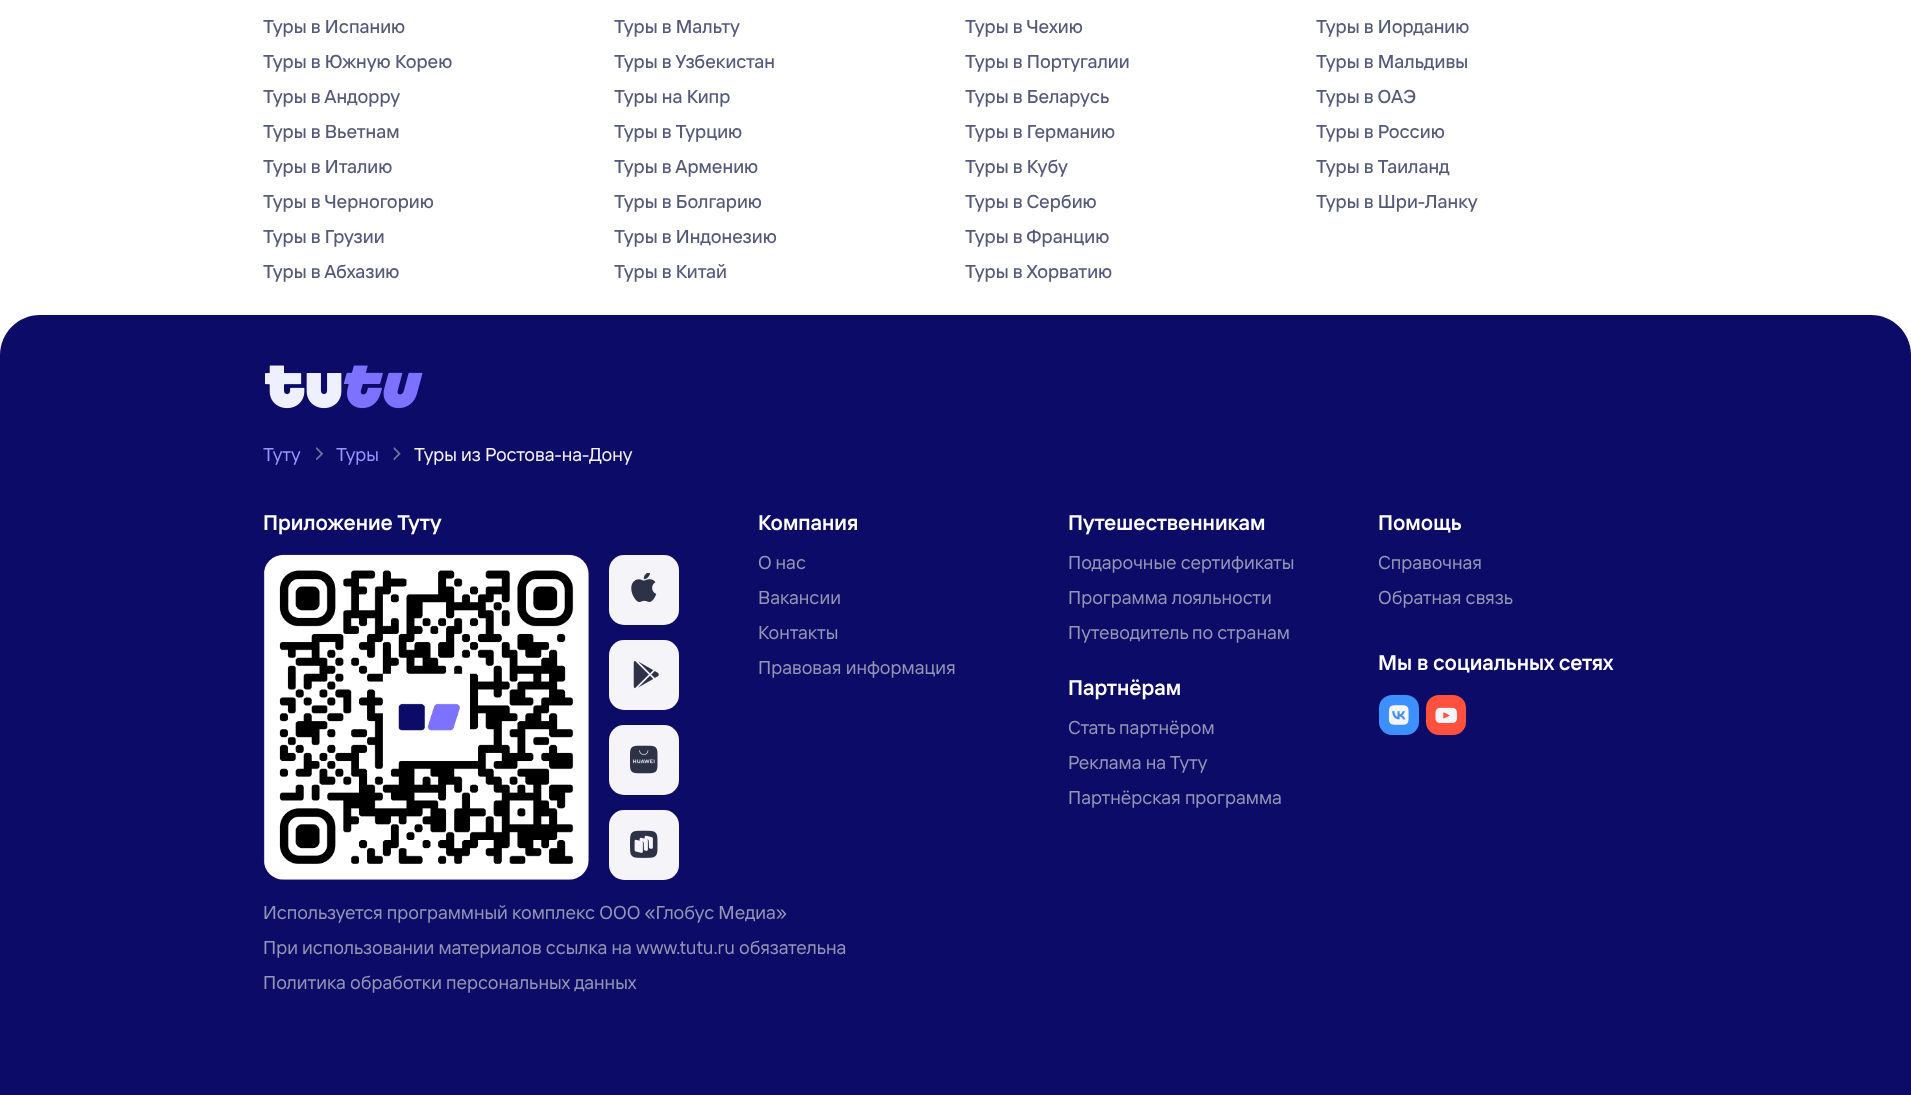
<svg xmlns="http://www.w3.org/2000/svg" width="1911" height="1095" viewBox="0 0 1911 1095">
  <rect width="100%" height="100%" fill="#fff"/>
  <path d="M40 315H1871C1893 315 1911 333 1911 355V1095H0V355C0 333 18 315 40 315Z" fill="#0d0b68"/>
  <image x="264" y="365" width="159" height="44" href="img/1.png"/>
  <image x="316" y="447" width="8" height="14" href="img/2.png"/>
  <image x="393" y="447" width="8" height="14" href="img/3.png"/>
  <image x="263" y="554" width="326" height="326" href="img/4.png"/>
  <rect x="609" y="555" width="70" height="70" rx="15" fill="#f5f5f9"/>
  <image x="631" y="573" width="26" height="29" href="img/5.png"/>
  <rect x="609" y="640" width="70" height="70" rx="15" fill="#f5f5f9"/>
  <image x="633" y="660" width="26" height="29" href="img/6.png"/>
  <rect x="609" y="725" width="70" height="70" rx="15" fill="#f5f5f9"/>
  <image x="630" y="745" width="28" height="29" href="img/7.png"/>
  <rect x="609" y="810" width="70" height="70" rx="15" fill="#f5f5f9"/>
  <image x="630" y="830" width="28" height="28" href="img/8.png"/>
  <rect x="1379" y="695" width="40" height="40" rx="13" fill="#3d91ff"/>
  <image x="1388" y="705" width="21" height="20" href="img/9.png"/>
  <rect x="1426" y="695" width="40" height="40" rx="13" fill="#ff513d"/>
  <image x="1435" y="707" width="22" height="16" href="img/10.png"/>
  <g font-family="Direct" font-size="18.75" font-weight="500" fill="#555a7a">
    <text x="263" y="33">Туры в Испанию</text>
    <text x="614" y="33">Туры в Мальту</text>
    <text x="965" y="33">Туры в Чехию</text>
    <text x="1316" y="33">Туры в Иорданию</text>
    <text x="263" y="68">Туры в Южную Корею</text>
    <text x="614" y="68">Туры в Узбекистан</text>
    <text x="965" y="68">Туры в Португалии</text>
    <text x="1316" y="68">Туры в Мальдивы</text>
    <text x="263" y="103">Туры в Андорру</text>
    <text x="614" y="103">Туры на Кипр</text>
    <text x="965" y="103">Туры в Беларусь</text>
    <text x="1316" y="103">Туры в ОАЭ</text>
    <text x="263" y="138">Туры в Вьетнам</text>
    <text x="614" y="138">Туры в Турцию</text>
    <text x="965" y="138">Туры в Германию</text>
    <text x="1316" y="138">Туры в Россию</text>
    <text x="263" y="173">Туры в Италию</text>
    <text x="614" y="173">Туры в Армению</text>
    <text x="965" y="173">Туры в Кубу</text>
    <text x="1316" y="173">Туры в Таиланд</text>
    <text x="263" y="208">Туры в Черногорию</text>
    <text x="614" y="208">Туры в Болгарию</text>
    <text x="965" y="208">Туры в Сербию</text>
    <text x="1316" y="208">Туры в Шри-Ланку</text>
    <text x="263" y="243">Туры в Грузии</text>
    <text x="614" y="243">Туры в Индонезию</text>
    <text x="965" y="243">Туры в Францию</text>
    <text x="263" y="278">Туры в Абхазию</text>
    <text x="614" y="278">Туры в Китай</text>
    <text x="965" y="278">Туры в Хорватию</text>
  </g>
  <g font-family="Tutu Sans" font-size="18.75" fill="#9996ff">
    <text x="263" y="461">Туту</text>
    <text x="336" y="461">Туры</text>
  </g>
  <text x="414" y="461" font-family="Tutu Sans" font-size="18.75" fill="#f5f5f9">Туры из Ростова-на-Дону</text>
  <g font-family="Tutu Sans" font-size="21.25" font-weight="600" fill="#fff">
    <text x="263" y="530">Приложение Туту</text>
    <text x="758" y="530">Компания</text>
  </g>
  <g font-family="Tutu Sans" font-size="18.75" fill="#9496b4">
    <text x="758" y="569">О нас</text>
    <text x="758" y="604">Вакансии</text>
    <text x="758" y="639">Контакты</text>
    <text x="758" y="674">Правовая информация</text>
  </g>
  <text x="1068" y="530" font-family="Tutu Sans" font-size="21.25" font-weight="600" fill="#fff">Путешественникам</text>
  <g font-family="Tutu Sans" font-size="18.75" fill="#9496b4">
    <text x="1068" y="569">Подарочные сертификаты</text>
    <text x="1068" y="604">Программа лояльности</text>
    <text x="1068" y="639">Путеводитель по странам</text>
  </g>
  <text x="1068" y="695" font-family="Tutu Sans" font-size="21.25" font-weight="600" fill="#fff">Партнёрам</text>
  <g font-family="Tutu Sans" font-size="18.75" fill="#9496b4">
    <text x="1068" y="734">Стать партнёром</text>
    <text x="1068" y="769">Реклама на Туту</text>
    <text x="1068" y="804">Партнёрская программа</text>
  </g>
  <text x="1378" y="530" font-family="Tutu Sans" font-size="21.25" font-weight="600" fill="#fff">Помощь</text>
  <g font-family="Tutu Sans" font-size="18.75" fill="#9496b4">
    <text x="1378" y="569">Справочная</text>
    <text x="1378" y="604">Обратная связь</text>
  </g>
  <text x="1378" y="670" font-family="Tutu Sans" font-size="21.25" font-weight="600" fill="#fff">Мы в социальных сетях</text>
  <g font-family="Tutu Sans" font-size="18.75" fill="#9496b4">
    <text x="263" y="919">Используется программный комплекс ООО «Глобус Медиа»</text>
    <text x="263" y="954">При использовании материалов ссылка на www.tutu.ru обязательна</text>
    <text x="263" y="989">Политика обработки персональных данных</text>
  </g>
</svg>
